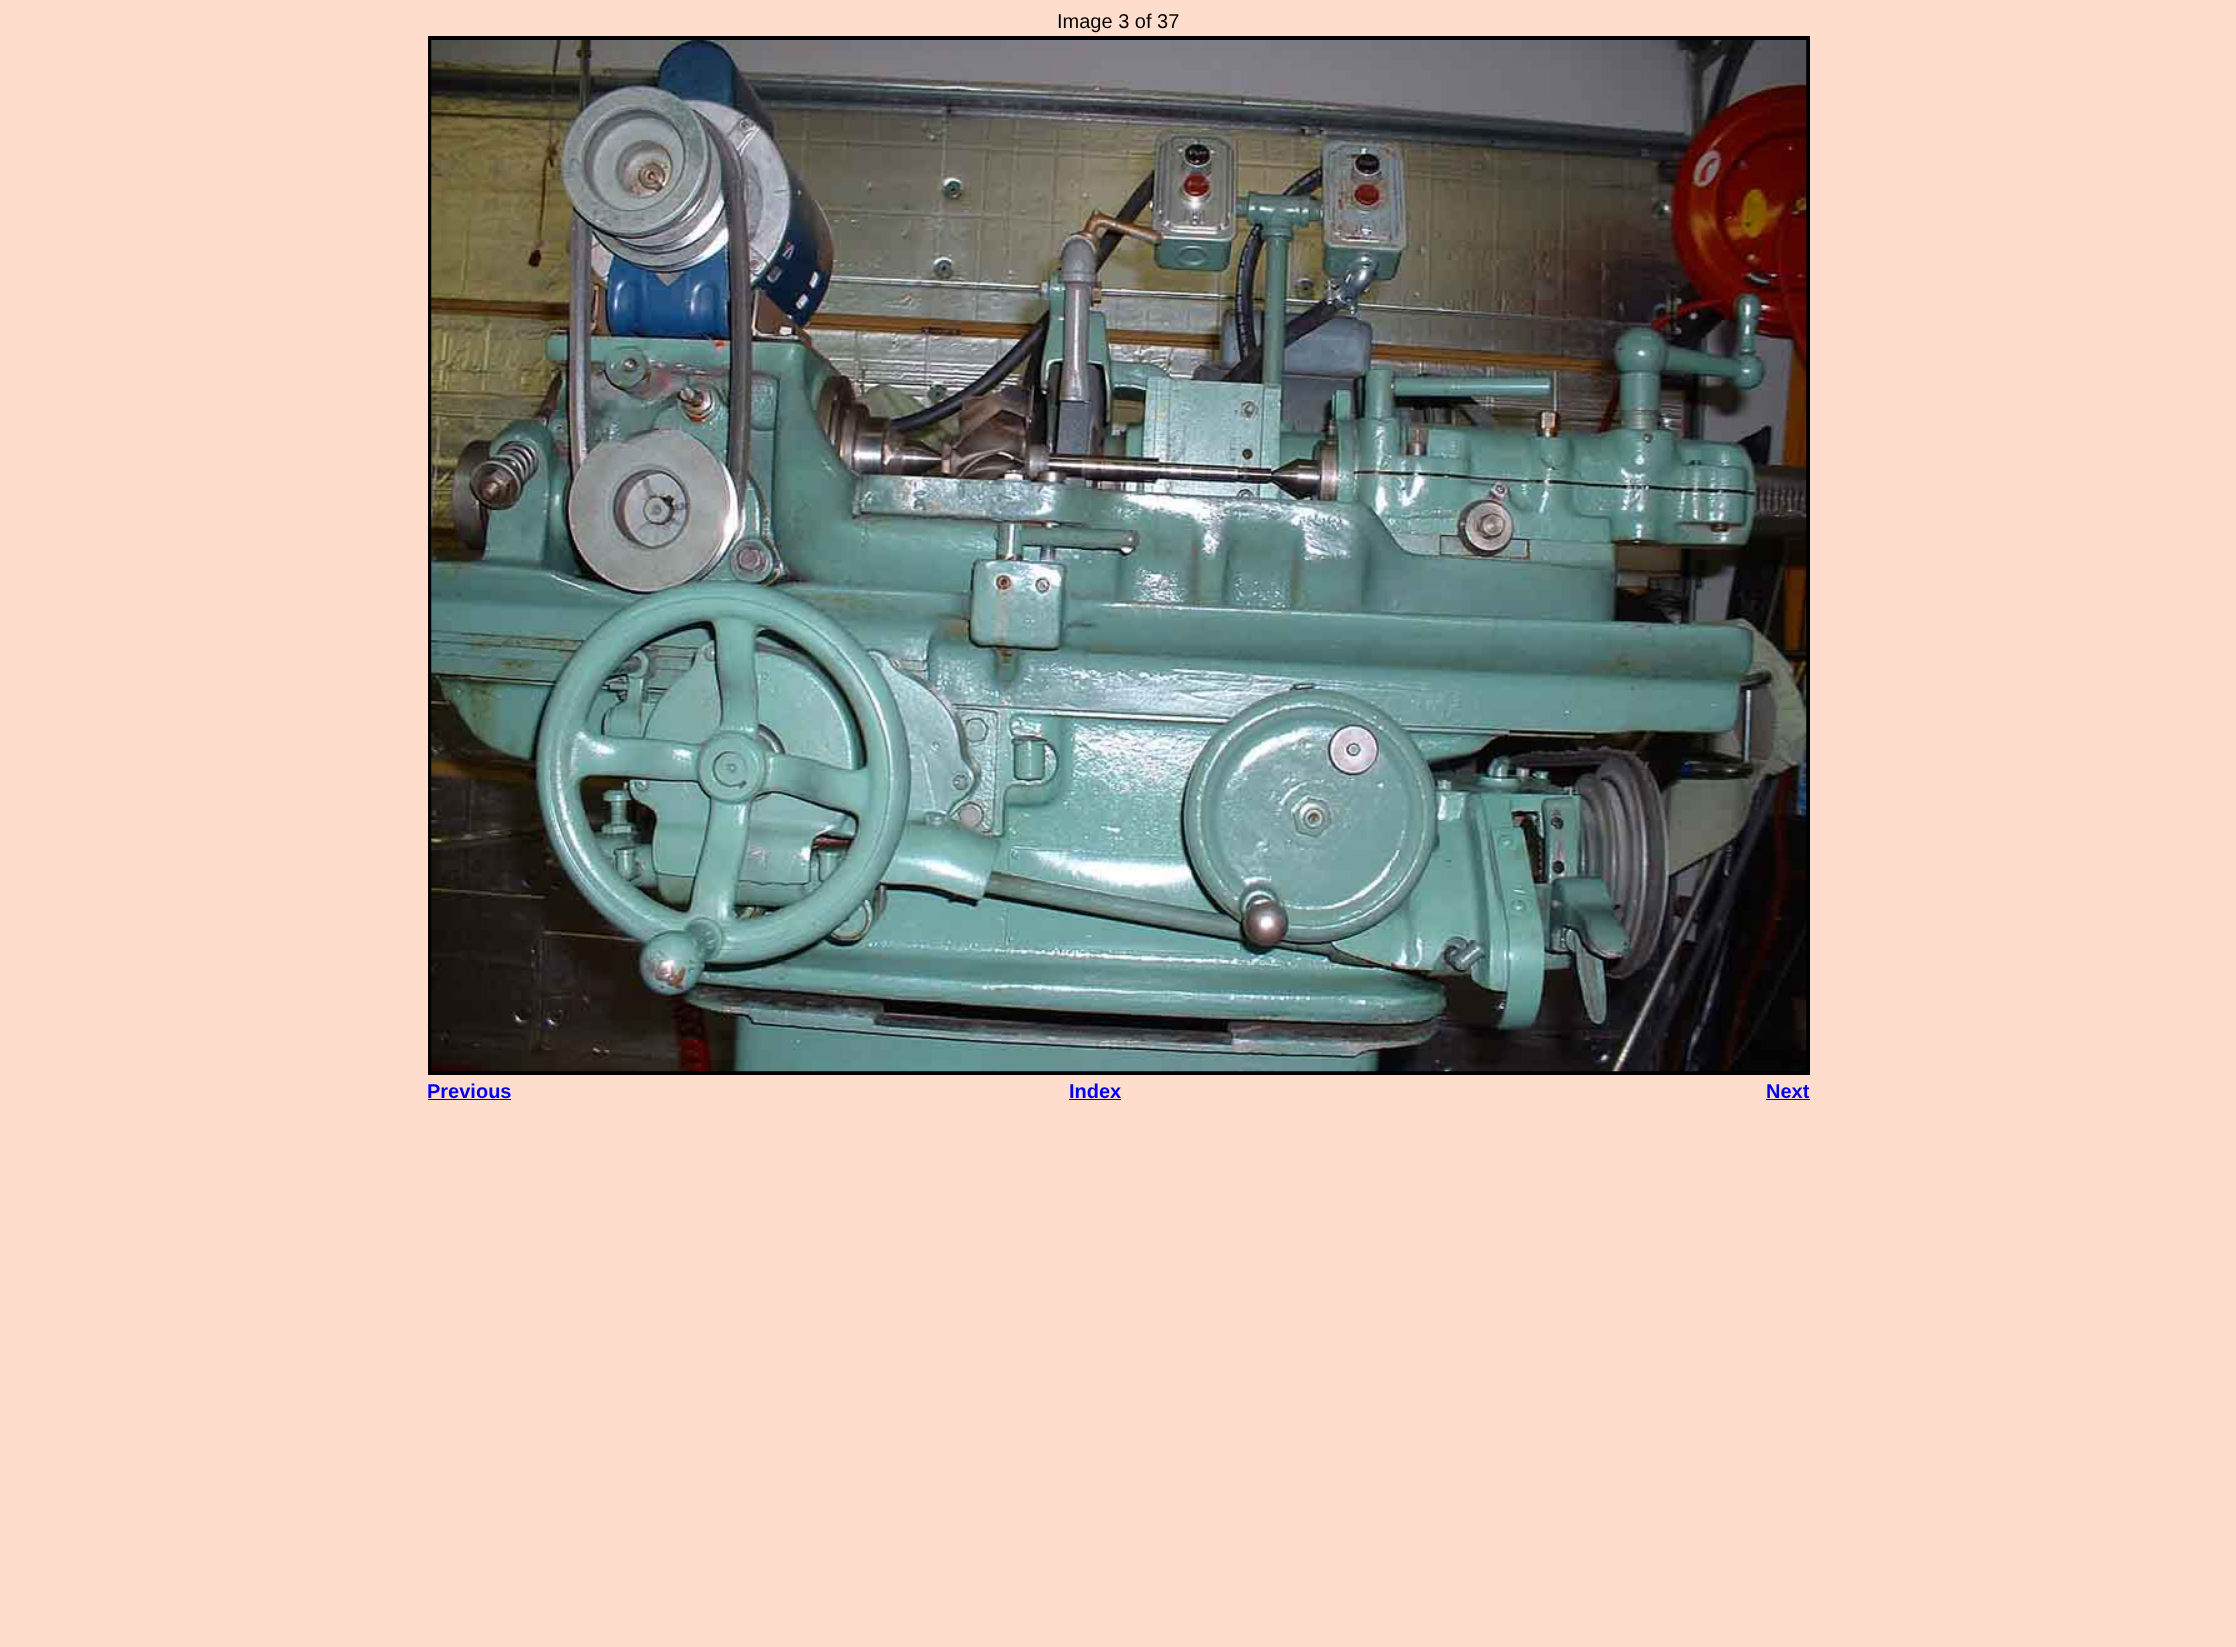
<svg xmlns="http://www.w3.org/2000/svg" width="2236" height="1647" viewBox="0 0 2236 1647">
  <rect width="100%" height="100%" fill="#fdc"/>
  <path d="M430 38h1378v1035H430z" fill="none" stroke="#000" stroke-width="4"/>
  <image x="431" y="40" width="1376" height="1032" href="img/1.png"/>
  <path d="M428 1099h83v1H428z" fill="#00e"/>
  <path d="M1069 1099h52v1H1069z" fill="#00e"/>
  <path d="M1766 1099h44v1H1766z" fill="#00e"/>
  <text x="1057" y="28" font-family="Liberation Sans" font-size="20" fill="#000">Image 3 of 37</text>
  <g font-family="Liberation Sans" font-size="20" font-weight="bold" fill="#00e">
    <text x="427" y="1098">Previous</text>
    <text x="1069" y="1098">Index</text>
    <text x="1766" y="1098">Next</text>
  </g>
</svg>
